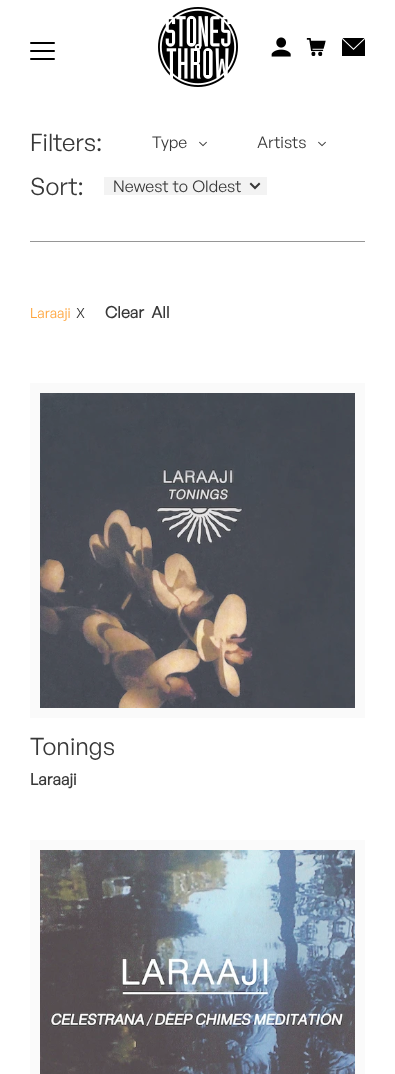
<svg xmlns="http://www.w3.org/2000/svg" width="395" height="1074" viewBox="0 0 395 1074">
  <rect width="100%" height="100%" fill="#fff"/>
  <rect x="30" y="42" width="25" height="2" rx="1" fill="#000"/>
  <rect x="30" y="50" width="25" height="2" rx="1" fill="#000"/>
  <rect x="30" y="58" width="25" height="2" rx="1" fill="#000"/>
  <image x="158" y="7" width="80" height="80" href="img/1.png"/>
  <image x="271" y="37" width="20" height="20" href="img/2.png"/>
  <image x="306" y="38" width="20" height="18" href="img/3.png"/>
  <path d="M342 39V56H365V39L353.5 50ZM364.5 38H342.5L353.5 48.5Z" fill="#000" fill-rule="evenodd"/>
  <path d="M30 241h335v1H30z" fill="#969696"/>
  <image x="199" y="141" width="8" height="6" href="img/4.png"/>
  <image x="318" y="141" width="8" height="6" href="img/4.png"/>
  <path d="M104 177h163v18H104z" fill="#f3f3f3"/>
  <path d="M259 184L255 188L251 184" fill="none" stroke="#383838" stroke-width="2" stroke-linecap="square"/>
  <path d="M30 383h335v335H30z" fill="#fafafa"/>
  <image x="40" y="393" width="315" height="315" href="img/5.png"/>
  <path d="M30 840h335v234H30z" fill="#fafafa"/>
  <image x="40" y="850" width="315" height="224" href="img/6.png"/>
  <text x="30" y="151" font-family="General Sans" font-size="24" fill="#383838">Filters:</text>
  <g font-family="General Sans" font-size="16" fill="#383838">
    <text x="152" y="148">Type</text>
    <text x="257" y="148">Artists</text>
  </g>
  <text x="30" y="195" font-family="General Sans" font-size="24" fill="#383838">Sort:</text>
  <text x="113" y="192" word-spacing="1" font-family="General Sans" font-size="16" fill="#383838">Newest to Oldest</text>
  <text x="30" y="318" font-family="General Sans" font-size="14" fill="#ffa338">Laraaji</text>
  <text x="76" y="318" font-family="General Sans" font-size="14" fill="#383838">X</text>
  <text x="105" y="318" word-spacing="4" font-family="General Sans" font-size="16" font-weight="bold" fill="#383838">Clear All</text>
  <text x="30" y="755" font-family="General Sans" font-size="24" fill="#383838">Tonings</text>
  <text x="30" y="785" font-family="General Sans" font-size="16" font-weight="bold" fill="#383838">Laraaji</text>
</svg>
